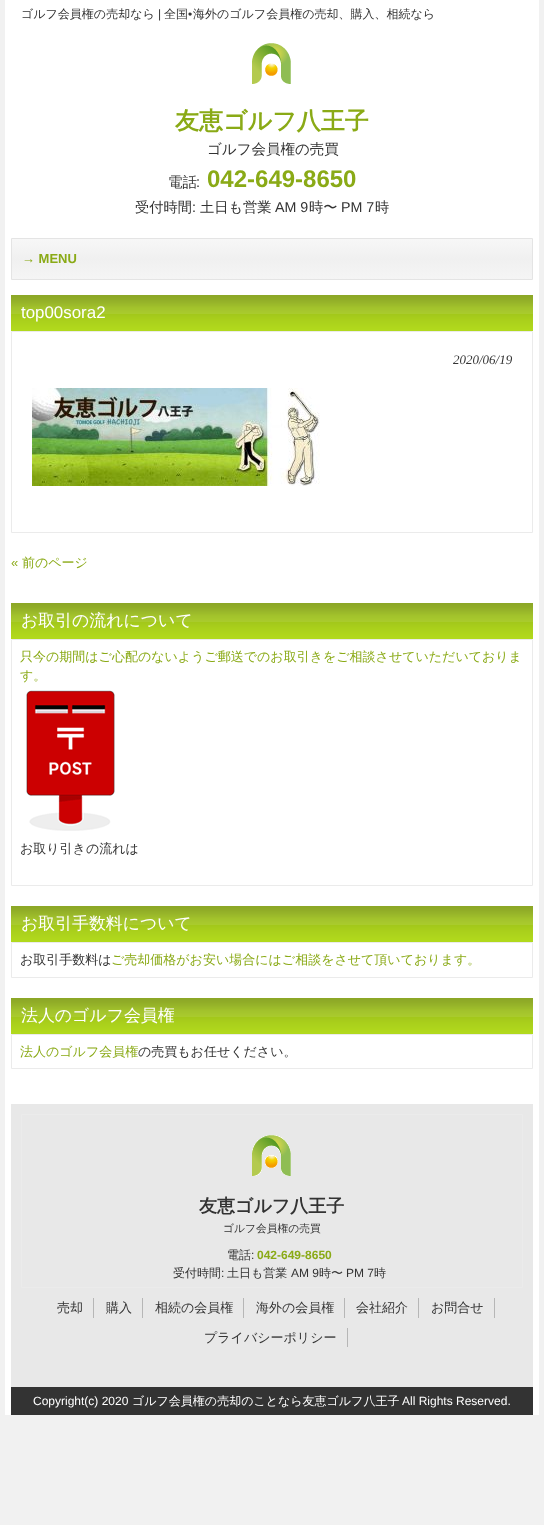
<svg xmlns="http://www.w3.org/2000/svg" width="544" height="1525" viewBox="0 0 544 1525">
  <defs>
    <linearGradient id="g1" gradientUnits="userSpaceOnUse" x1="272" y1="239" x2="272" y2="279"><stop offset="0" stop-color="#f7f7f7"/><stop offset="0.5" stop-color="#f0f0f0"/><stop offset="1" stop-color="#f5f5f5"/></linearGradient>
  </defs>
  <rect width="100%" height="100%" fill="#f1f1f1"/>
  <path d="M5 0h534v1415H5z" fill="#fff"/>
  <image x="252" y="43" width="39" height="41" href="img/1.png"/>
  <path d="M12 239h520v40H12z" fill="url(#g1)"/>
  <path d="M11.5 238.5h521v41H11.5z" fill="none" stroke="#e4e4e4"/>
  <image x="11" y="295" width="522" height="36" href="img/2.png"/>
  <path d="M11.5 331.5h521v201H11.5z" fill="none" stroke="#ebebeb"/>
  <image x="32" y="388" width="288" height="98" href="img/3.png"/>
  <image x="11" y="603" width="522" height="36" href="img/2.png"/>
  <path d="M11.5 639.5h521v246H11.5z" fill="none" stroke="#ebebeb"/>
  <image x="26" y="690" width="89" height="141" href="img/4.png"/>
  <image x="11" y="906" width="522" height="36" href="img/2.png"/>
  <path d="M11.5 942.5h521v35H11.5z" fill="none" stroke="#ebebeb"/>
  <image x="11" y="998" width="522" height="36" href="img/2.png"/>
  <path d="M11.5 1034.5h521v34H11.5z" fill="none" stroke="#ebebeb"/>
  <path d="M11 1104h522v283H11z" fill="#e8e8e8"/>
  <path d="M21.5 1114.5h501v173H21.5z" fill="none" stroke="#ebebeb"/>
  <image x="252" y="1135" width="39" height="41" href="img/5.png"/>
  <path d="M93 1298h1v20H93z" fill="#b6b6b6"/>
  <path d="M142 1298h1v20H142z" fill="#b6b6b6"/>
  <path d="M243 1298h1v20H243z" fill="#b6b6b6"/>
  <path d="M344 1298h1v20H344z" fill="#b6b6b6"/>
  <path d="M418 1298h1v20H418z" fill="#b6b6b6"/>
  <path d="M494 1298h1v20H494z" fill="#b6b6b6"/>
  <path d="M347 1328h1v19H347z" fill="#b6b6b6"/>
  <path d="M11 1387h522v28H11z" fill="#333"/>
  <text x="21" y="18" font-family="WenQuanYi Zen Hei" font-size="12" font-weight="500" fill="#333">ゴルフ会員権の売却なら</text>
  <text x="158" y="18" font-family="Liberation Sans" font-size="12" fill="#333">|</text>
  <text x="164" y="18" font-family="WenQuanYi Zen Hei" font-size="12" font-weight="500" fill="#333">全国</text>
  <text x="188" y="18" font-family="Liberation Sans" font-size="12" fill="#333">•</text>
  <text x="193" y="18" font-family="WenQuanYi Zen Hei" font-size="12" font-weight="500" fill="#333">海外のゴルフ会員権の売却、購入、相続なら</text>
  <text x="175" y="129" font-family="WenQuanYi Zen Hei" font-size="24" font-weight="bold" fill="#8aaa16">友恵ゴルフ八王子</text>
  <g font-family="WenQuanYi Zen Hei" font-size="14.5" font-weight="500" fill="#333">
    <text x="207" y="154">ゴルフ会員権の売買</text>
    <text x="168" y="187">電話</text>
  </g>
  <text x="196" y="187" font-family="Liberation Sans" font-size="14.5" fill="#333">:</text>
  <text x="207" y="187" font-family="Liberation Sans" font-size="24" font-weight="bold" fill="#8aaa16">042-649-8650</text>
  <text x="135" y="212" font-family="WenQuanYi Zen Hei" font-size="14.25" font-weight="500" fill="#333">受付時間</text>
  <text x="192" y="212" font-family="Liberation Sans" font-size="14.25" fill="#333">:</text>
  <text x="200" y="212" font-family="WenQuanYi Zen Hei" font-size="14.25" font-weight="500" fill="#333">土日も営業</text>
  <text x="275" y="212" font-family="Liberation Sans" font-size="14.25" fill="#333">AM 9</text>
  <text x="309" y="212" font-family="WenQuanYi Zen Hei" font-size="14.25" font-weight="500" fill="#333">時〜</text>
  <text x="341" y="212" font-family="Liberation Sans" font-size="14.25" fill="#333">PM 7</text>
  <text x="375" y="212" font-family="WenQuanYi Zen Hei" font-size="14.25" font-weight="500" fill="#333">時</text>
  <text x="22" y="263" font-family="Liberation Sans" font-size="13" font-weight="bold" fill="#8aaa16">→ MENU</text>
  <text x="21" y="318" font-family="Liberation Sans" font-size="16.9" fill="#fff">top00sora2</text>
  <text x="453" y="364" font-family="Liberation Serif" font-size="13" font-style="italic" fill="#333">2020/06/19</text>
  <text x="11" y="567" font-family="Liberation Sans" font-size="13" fill="#8aaa16">«</text>
  <text x="22" y="567" font-family="WenQuanYi Zen Hei" font-size="13" font-weight="500" fill="#8aaa16">前のページ</text>
  <text x="21" y="626" font-family="WenQuanYi Zen Hei" font-size="16.9" font-weight="500" fill="#fff">お取引の流れについて</text>
  <g font-family="WenQuanYi Zen Hei" font-size="13" font-weight="500" fill="#8aaa16">
    <text x="20" y="661">只今の期間はご心配のないようご郵送でのお取引きをご相談させていただいておりま</text>
    <text x="20" y="680">す。</text>
  </g>
  <text x="20" y="853" font-family="WenQuanYi Zen Hei" font-size="13" font-weight="500" fill="#333">お取り引きの流れは</text>
  <text x="21" y="929" font-family="WenQuanYi Zen Hei" font-size="16.9" font-weight="500" fill="#fff">お取引手数料について</text>
  <text x="20" y="964" font-family="WenQuanYi Zen Hei" font-size="13" font-weight="500" fill="#333">お取引手数料は</text>
  <text x="111" y="964" font-family="WenQuanYi Zen Hei" font-size="13" font-weight="500" fill="#8aaa16">ご売却価格がお安い場合にはご相談をさせて頂いております。</text>
  <text x="21" y="1021" font-family="WenQuanYi Zen Hei" font-size="16.9" font-weight="500" fill="#fff">法人のゴルフ会員権</text>
  <text x="20" y="1056" font-family="WenQuanYi Zen Hei" font-size="13" font-weight="500" fill="#8aaa16">法人のゴルフ会員権</text>
  <text x="138" y="1056" font-family="WenQuanYi Zen Hei" font-size="13" font-weight="500" fill="#333">の売買もお任せください。</text>
  <text x="199" y="1212" font-family="WenQuanYi Zen Hei" font-size="18" font-weight="bold" fill="#333">友恵ゴルフ八王子</text>
  <text x="223" y="1232" font-family="WenQuanYi Zen Hei" font-size="10.75" font-weight="500" fill="#333">ゴルフ会員権の売買</text>
  <text x="227" y="1259" font-family="WenQuanYi Zen Hei" font-size="12" font-weight="500" fill="#333">電話</text>
  <text x="251" y="1259" font-family="Liberation Sans" font-size="12" fill="#333">:</text>
  <text x="257" y="1259" font-family="Liberation Sans" font-size="12" font-weight="bold" fill="#8aaa16">042-649-8650</text>
  <text x="173" y="1277" font-family="WenQuanYi Zen Hei" font-size="12" font-weight="500" fill="#333">受付時間</text>
  <text x="221" y="1277" font-family="Liberation Sans" font-size="12" fill="#333">:</text>
  <text x="227" y="1277" font-family="WenQuanYi Zen Hei" font-size="12" font-weight="500" fill="#333">土日も営業</text>
  <text x="291" y="1277" font-family="Liberation Sans" font-size="12" fill="#333">AM 9</text>
  <text x="319" y="1277" font-family="WenQuanYi Zen Hei" font-size="12" font-weight="500" fill="#333">時〜</text>
  <text x="346" y="1277" font-family="Liberation Sans" font-size="12" fill="#333">PM 7</text>
  <text x="374" y="1277" font-family="WenQuanYi Zen Hei" font-size="12" font-weight="500" fill="#333">時</text>
  <g font-family="WenQuanYi Zen Hei" font-size="13" font-weight="500" fill="#333">
    <text x="57" y="1312">売却</text>
    <text x="106" y="1312">購入</text>
    <text x="155" y="1312">相続の会員権</text>
    <text x="256" y="1312">海外の会員権</text>
    <text x="356" y="1312">会社紹介</text>
    <text x="431" y="1312">お問合せ</text>
    <text x="204" y="1342">プライバシーポリシー</text>
  </g>
  <text x="33" y="1405" font-family="Liberation Sans" font-size="12" fill="#fff">Copyright(c) 2020</text>
  <text x="132" y="1405" font-family="WenQuanYi Zen Hei" font-size="12" font-weight="500" fill="#fff">ゴルフ会員権の売却のことなら友恵ゴルフ八王子</text>
  <text x="402" y="1405" font-family="Liberation Sans" font-size="12" fill="#fff">All Rights Reserved.</text>
</svg>
